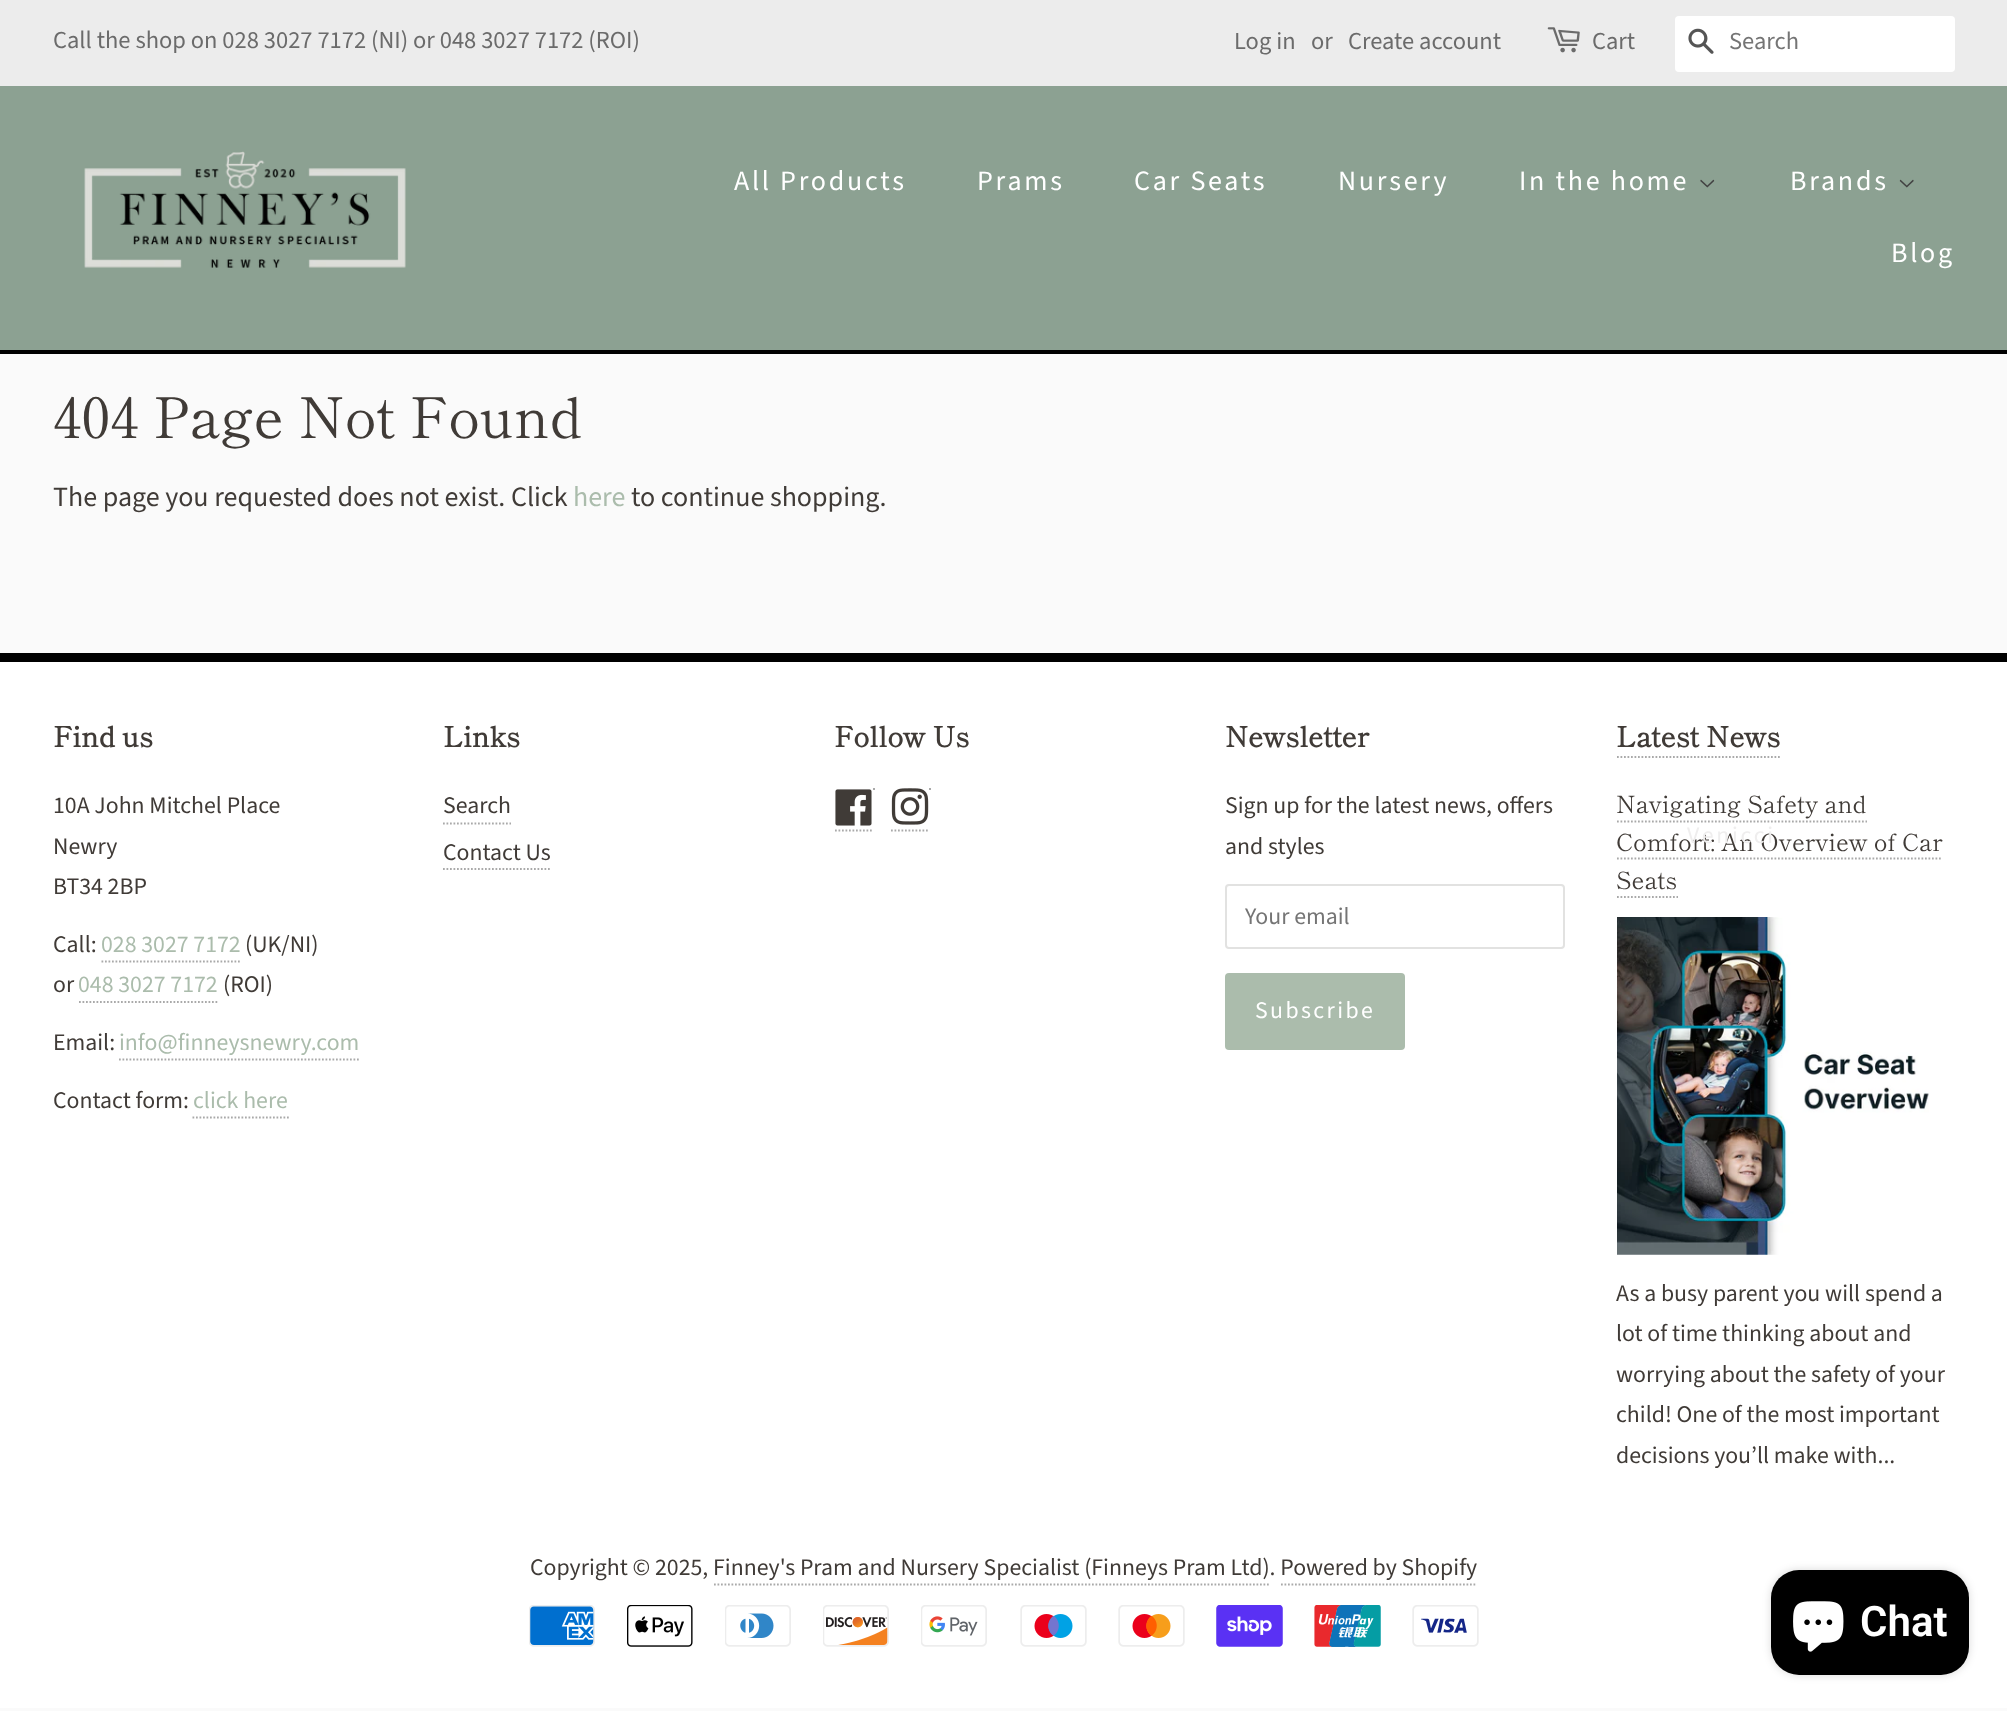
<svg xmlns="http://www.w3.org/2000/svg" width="2007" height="1711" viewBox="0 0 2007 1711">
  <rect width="100%" height="100%" fill="#fafafa"/>
  <path d="M0 350h2007v4H0z" fill="#000"/>
  <path d="M0 0h2007v86H0z" fill="#ececec"/>
  <image x="1547" y="27" width="33" height="26" href="img/1.png"/>
  <rect x="1675" y="16" width="280" height="56" rx="4" fill="#fff"/>
  <image x="1688" y="28" width="26" height="26" href="img/2.png"/>
  <path d="M0 86h2007v264H0z" fill="#8ca192"/>
  <image x="84" y="151" width="322" height="117" href="img/3.png"/>
  <image x="1700" y="179" width="15" height="9" href="img/4.png"/>
  <image x="1899" y="179" width="15" height="9" href="img/5.png"/>
  <path d="M0 662h2007v1046H0z" fill="#fff"/>
  <path d="M0 653h2007v9H0z" fill="#000"/>
  <path d="M101.5 961.5H240" fill="none" stroke="#a9a9a9" stroke-width="1.8" stroke-dasharray="1.75 1.75"/>
  <path d="M79 1002H219" fill="none" stroke="#a9a9a9" stroke-width="1.8" stroke-dasharray="1.75 1.75"/>
  <path d="M119 1059.5H359" fill="none" stroke="#a9a9a9" stroke-width="1.8" stroke-dasharray="1.75 1.75"/>
  <path d="M192.5 1117.5H289" fill="none" stroke="#a9a9a9" stroke-width="1.8" stroke-dasharray="1.75 1.75"/>
  <path d="M443 823.5H511" fill="none" stroke="#a9a9a9" stroke-width="1.8" stroke-dasharray="1.75 1.75"/>
  <path d="M443 869H551" fill="none" stroke="#a9a9a9" stroke-width="1.8" stroke-dasharray="1.75 1.75"/>
  <path d="M835 830.5H873" fill="none" stroke="#a9a9a9" stroke-width="1.8" stroke-dasharray="1.75 1.75"/>
  <path d="M873 788h2v2H873z" fill="#a9a9a9"/>
  <image x="835" y="789" width="37" height="37" href="img/6.png"/>
  <path d="M891 830.5H929" fill="none" stroke="#a9a9a9" stroke-width="1.8" stroke-dasharray="1.75 1.75"/>
  <path d="M929 788h2v2H929z" fill="#a9a9a9"/>
  <image x="891" y="788" width="38" height="37" href="img/7.png"/>
  <rect x="1226" y="885" width="338" height="63" rx="3" fill="none" stroke="#e2e2e1" stroke-width="2"/>
  <rect x="1225" y="973" width="180" height="77" rx="4" fill="#abbcac"/>
  <path d="M1617 757H1780" fill="none" stroke="#a9a9a9" stroke-width="1.8" stroke-dasharray="1.75 1.75"/>
  <path d="M1617 821.5H1867" fill="none" stroke="#a9a9a9" stroke-width="1.8" stroke-dasharray="1.75 1.75"/>
  <path d="M1617 858.5H1942.5" fill="none" stroke="#a9a9a9" stroke-width="1.8" stroke-dasharray="1.75 1.75"/>
  <path d="M1617 897H1678" fill="none" stroke="#a9a9a9" stroke-width="1.8" stroke-dasharray="1.75 1.75"/>
  <image x="1617" y="917" width="312" height="338" href="img/8.png"/>
  <path d="M714 1584.5H1269" fill="none" stroke="#a9a9a9" stroke-width="1.8" stroke-dasharray="1.75 1.75"/>
  <path d="M1281 1584.5H1477" fill="none" stroke="#a9a9a9" stroke-width="1.8" stroke-dasharray="1.75 1.75"/>
  <image x="529" y="1605" width="66" height="42" href="img/9.png"/>
  <image x="627" y="1605" width="66" height="42" href="img/10.png"/>
  <image x="725" y="1605" width="66" height="42" href="img/11.png"/>
  <image x="823" y="1605" width="66" height="42" href="img/12.png"/>
  <image x="921" y="1605" width="66" height="42" href="img/13.png"/>
  <image x="1020" y="1605" width="67" height="42" href="img/14.png"/>
  <image x="1118" y="1605" width="67" height="42" href="img/15.png"/>
  <image x="1216" y="1605" width="67" height="42" href="img/16.png"/>
  <image x="1314" y="1605" width="67" height="42" href="img/17.png"/>
  <image x="1412" y="1605" width="67" height="42" href="img/18.png"/>
  <rect x="1771" y="1570" width="198" height="105" rx="28" fill="#00000026" filter="blur(4.5px)"/>
  <rect x="1771" y="1570" width="198" height="105" rx="28" fill="#000"/>
  <image x="1793" y="1601" width="51" height="51" href="img/19.png"/>
  <g font-family="Source Sans Pro" font-size="24.5" fill="#6b6b6b">
    <text x="53" y="48">Call the shop on 028 3027 7172 (NI) or 048 3027 7172 (ROI)</text>
    <text x="1234" y="49">Log in</text>
    <text x="1311" y="49">or</text>
    <text x="1348" y="49">Create account</text>
    <text x="1592" y="49">Cart</text>
  </g>
  <text x="1729" y="49" font-family="Source Sans Pro" font-size="24.5" fill="#757575">Search</text>
  <g font-family="Source Sans Pro" font-size="28" letter-spacing="2.75" fill="#fff">
    <text x="734" y="190">All Products</text>
    <text x="977" y="190">Prams</text>
    <text x="1134" y="190">Car Seats</text>
    <text x="1338" y="190">Nursery</text>
    <text x="1519" y="190">In the home</text>
    <text x="1790" y="190">Brands</text>
    <text x="1891" y="262">Blog</text>
  </g>
  <text x="53" y="438" font-family="Shippori Mincho" font-size="56" fill="#403b37">404 Page Not Found</text>
  <text x="53" y="506" font-family="Source Sans Pro" font-size="28" fill="#403b37">The page you requested does not exist. Click</text>
  <text x="573" y="506" font-family="Source Sans Pro" font-size="28" fill="#abbcac">here</text>
  <text x="631" y="506" font-family="Source Sans Pro" font-size="28" fill="#403b37">to continue shopping.</text>
  <text x="53" y="747" font-family="Shippori Mincho" font-size="28" font-weight="bold" fill="#403b37">Find us</text>
  <g font-family="Source Sans Pro" font-size="23.8" fill="#403b37">
    <text x="53" y="813">10A John Mitchel Place</text>
    <text x="53" y="854">Newry</text>
    <text x="53" y="894">BT34 2BP</text>
    <text x="53" y="952">Call:</text>
  </g>
  <text x="101" y="952" font-family="Source Sans Pro" font-size="23.8" fill="#abbcac">028 3027 7172</text>
  <g font-family="Source Sans Pro" font-size="23.8" fill="#403b37">
    <text x="245" y="952">(UK/NI)</text>
    <text x="53" y="992">or</text>
  </g>
  <text x="78" y="992" font-family="Source Sans Pro" font-size="23.8" fill="#abbcac">048 3027 7172</text>
  <g font-family="Source Sans Pro" font-size="23.8" fill="#403b37">
    <text x="223" y="992">(ROI)</text>
    <text x="53" y="1050">Email:</text>
  </g>
  <text x="119" y="1050" font-family="Source Sans Pro" font-size="23.8" fill="#abbcac">info@finneysnewry.com</text>
  <text x="53" y="1108" font-family="Source Sans Pro" font-size="23.8" fill="#403b37">Contact form:</text>
  <text x="193" y="1108" font-family="Source Sans Pro" font-size="23.8" fill="#abbcac">click here</text>
  <text x="443" y="747" font-family="Shippori Mincho" font-size="28" font-weight="bold" fill="#403b37">Links</text>
  <g font-family="Source Sans Pro" font-size="23.8" fill="#403b37">
    <text x="443" y="813">Search</text>
    <text x="443" y="860">Contact Us</text>
  </g>
  <g font-family="Shippori Mincho" font-size="28" font-weight="bold" fill="#403b37">
    <text x="834" y="747">Follow Us</text>
    <text x="1225" y="747">Newsletter</text>
  </g>
  <g font-family="Source Sans Pro" font-size="23.8" fill="#403b37">
    <text x="1225" y="813">Sign up for the latest news, offers</text>
    <text x="1225" y="854">and styles</text>
  </g>
  <text x="1245" y="924" font-family="Source Sans Pro" font-size="23.8" fill="#757575">Your email</text>
  <text x="1255" y="1018" font-family="Source Sans Pro" font-size="23.8" letter-spacing="2.4" fill="#fff">Subscribe</text>
  <text x="1616" y="747" font-family="Shippori Mincho" font-size="28" font-weight="bold" fill="#403b37">Latest News</text>
  <g font-family="Shippori Mincho" font-size="23.8" fill="#403b37">
    <text x="1616" y="813">Navigating Safety and</text>
    <text x="1616" y="851">Comfort: An Overview of Car</text>
  </g>
  <text x="1687" y="843" font-family="Source Sans Pro" font-size="23.8" letter-spacing="2.75" fill="#efeeee">Venicci</text>
  <text x="1616" y="889" font-family="Shippori Mincho" font-size="23.8" fill="#403b37">Seats</text>
  <g font-family="Source Sans Pro" font-size="23.8" fill="#403b37">
    <text x="1616" y="1301">As a busy parent you will spend a</text>
    <text x="1616" y="1341">lot of time thinking about and</text>
    <text x="1616" y="1382">worrying about the safety of your</text>
    <text x="1616" y="1422">child! One of the most important</text>
    <text x="1616" y="1463">decisions you’ll make with...</text>
    <text x="530" y="1575">Copyright © 2025, Finney's Pram and Nursery Specialist (Finneys Pram Ltd). Powered by Shopify</text>
  </g>
  <text x="1860" y="1636" font-family="Roboto" font-size="42" font-weight="600" fill="#fff">Chat</text>
</svg>
